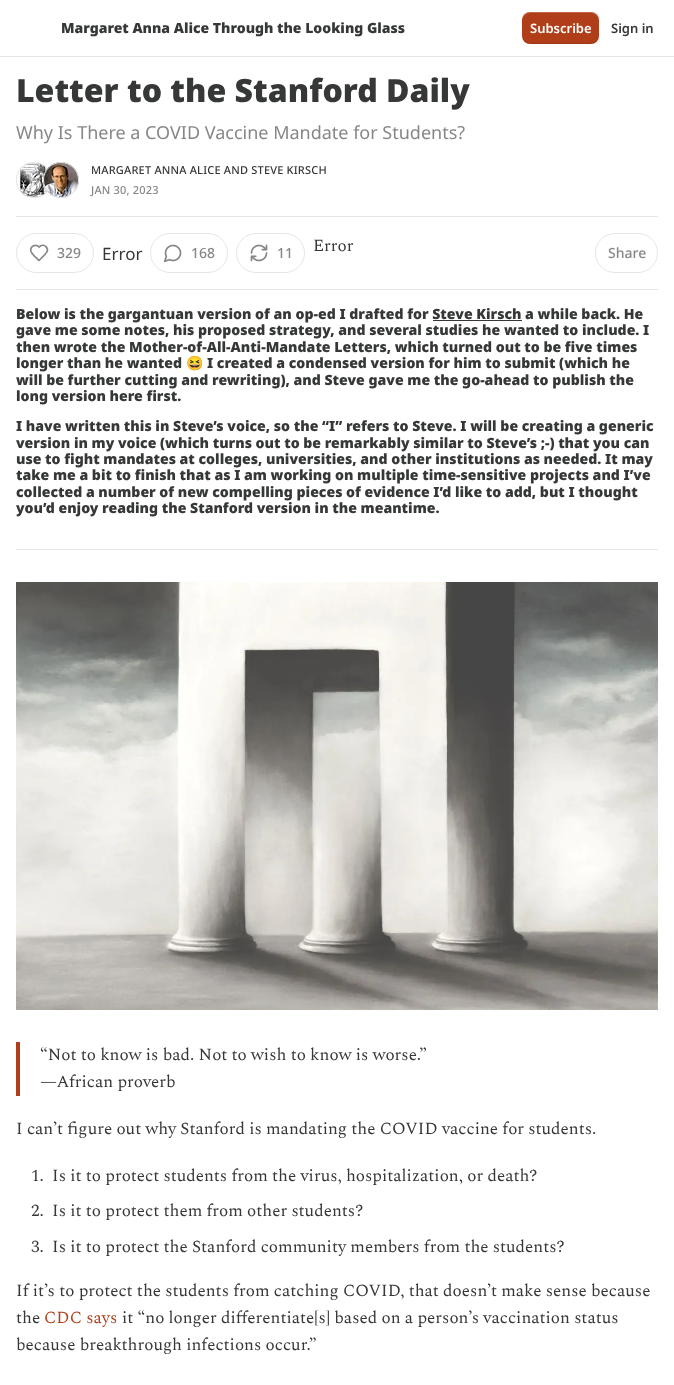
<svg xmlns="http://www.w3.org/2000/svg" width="674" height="1385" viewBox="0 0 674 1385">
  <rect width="100%" height="100%" fill="#fff"/>
  <path d="M0 56h674v1H0z" fill="#e6e6e6"/>
  <rect x="522" y="12" width="77" height="32" rx="8" fill="#b03f19"/>
  <path d="M522 35C522 46 532 44 540 44H581C589 44 599 46 599 35C599 39 595 43 591 43H530C526 43 522 39 522 35Z" fill="#0000001a"/>
  <path d="M530 13H591C595 13 599 17 599 21C599 10 589 12 581 12H540C532 12 522 10 522 21C522 17 526 13 530 13Z" fill="#ffffff33"/>
  <circle cx="34" cy="180" r="17.5" fill="none" stroke="#e6e6e6"/>
  <image x="16" y="162" width="32" height="36" href="img/1.png"/>
  <circle cx="34" cy="180" r="17.5" fill="none" stroke="#e6e6e6"/>
  <circle cx="61" cy="180" r="17.5" fill="none" stroke="#e6e6e6"/>
  <image x="43" y="162" width="36" height="36" href="img/2.png"/>
  <circle cx="61" cy="180" r="17.5" fill="none" stroke="#e6e6e6"/>
  <path d="M16 216h642v1H16z" fill="#e6e6e6"/>
  <path d="M16 289h642v1H16z" fill="#e6e6e6"/>
  <rect x="16.5" y="233.5" width="77" height="39" rx="19.5" fill="none" stroke="#e6e6e6"/>
  <path d="M45 254.5C51 248.5 44 242.5 39 247C35.5 243.5 29.5 246.5 31 251.5C32 254.5 37 258.5 39 260.5Z" fill="none" stroke="#868787" stroke-width="1.7" stroke-linecap="round" stroke-linejoin="round"/>
  <rect x="150.5" y="233.5" width="77" height="39" rx="19.5" fill="none" stroke="#e6e6e6"/>
  <image x="163" y="244" width="19" height="19" href="img/3.png"/>
  <rect x="236.5" y="233.5" width="68" height="39" rx="19.5" fill="none" stroke="#e6e6e6"/>
  <image x="250" y="244" width="18" height="18" href="img/4.png"/>
  <rect x="595.5" y="233.5" width="62" height="39" rx="19.5" fill="none" stroke="#e6e6e6"/>
  <path d="M433 320h89v1H433z" fill="#363737"/>
  <path d="M16 549h642v1H16z" fill="#e6e6e6"/>
  <image x="16" y="582" width="642" height="428" href="img/5.png"/>
  <path d="M16 1042h4v54H16z" fill="#b03f19"/>
  <text x="61" y="33" font-family="Noto Sans" font-size="14" font-weight="900" fill="#363737">Margaret Anna Alice Through the Looking Glass</text>
  <text x="530" y="33" font-family="Noto Sans" font-size="13" font-weight="600" fill="#fff">Subscribe</text>
  <text x="611" y="33" font-family="Noto Sans" font-size="13" font-weight="600" fill="#363737">Sign in</text>
  <text x="16" y="102" font-family="Noto Sans" font-size="32" font-weight="900" fill="#363737">Letter to the Stanford Daily</text>
  <text x="16" y="139" font-family="Noto Sans" font-size="18" fill="#868787">Why Is There a COVID Vaccine Mandate for Students?</text>
  <text x="91" y="174" font-family="Noto Sans" font-size="11" font-weight="500" letter-spacing="0.2" fill="#363737">MARGARET ANNA ALICE AND STEVE KIRSCH</text>
  <text x="91" y="194" font-family="Noto Sans" font-size="11" font-weight="500" letter-spacing="0.2" fill="#868787">JAN 30, 2023</text>
  <text x="313" y="251" font-family="Spectral" font-size="17" fill="#363737">Error</text>
  <text x="57" y="258" font-family="Noto Sans" font-size="14" font-weight="500" fill="#868787">329</text>
  <text x="102" y="260" font-family="Noto Sans" font-size="17" fill="#363737">Error</text>
  <g font-family="Noto Sans" font-size="14" font-weight="500" fill="#868787">
    <text x="191" y="258">168</text>
    <text x="277" y="258">11</text>
    <text x="608" y="258">Share</text>
  </g>
  <g font-family="Noto Sans" font-size="14.1" font-weight="900" fill="#363737">
    <text x="16" y="319">Below is the gargantuan version of an op-ed I drafted for Steve Kirsch a while back. He</text>
    <text x="16" y="335">gave me some notes, his proposed strategy, and several studies he wanted to include. I</text>
    <text x="16" y="352">then wrote the Mother-of-All-Anti-Mandate Letters, which turned out to be five times</text>
    <text x="16" y="368">longer than he wanted</text>
  </g>
  <text x="186" y="368" font-family="Noto Color Emoji" font-size="14.1" font-weight="bold" fill="#363737">😆</text>
  <g font-family="Noto Sans" font-size="14.1" font-weight="900" fill="#363737">
    <text x="207" y="368">I created a condensed version for him to submit (which he</text>
    <text x="16" y="385">will be further cutting and rewriting), and Steve gave me the go-ahead to publish the</text>
    <text x="16" y="401">long version here first.</text>
    <text x="16" y="431">I have written this in Steve’s voice, so the “I” refers to Steve. I will be creating a generic</text>
    <text x="16" y="448">version in my voice (which turns out to be remarkably similar to Steve’s ;-) that you can</text>
    <text x="16" y="464">use to fight mandates at colleges, universities, and other institutions as needed. It may</text>
    <text x="16" y="480">take me a bit to finish that as I am working on multiple time-sensitive projects and I’ve</text>
    <text x="16" y="497">collected a number of new compelling pieces of evidence I’d like to add, but I thought</text>
    <text x="16" y="513">you’d enjoy reading the Stanford version in the meantime.</text>
  </g>
  <g font-family="Spectral" font-size="17" fill="#363737">
    <text x="40" y="1060">“Not to know is bad. Not to wish to know is worse.”</text>
    <text x="40" y="1087">—African proverb</text>
    <text x="16" y="1134">I can’t figure out why Stanford is mandating the COVID vaccine for students.</text>
    <text x="31" y="1181">1.</text>
    <text x="52" y="1181">Is it to protect students from the virus, hospitalization, or death?</text>
    <text x="31" y="1216">2.</text>
    <text x="52" y="1216">Is it to protect them from other students?</text>
    <text x="31" y="1252">3.</text>
    <text x="52" y="1252">Is it to protect the Stanford community members from the students?</text>
    <text x="16" y="1296">If it’s to protect the students from catching COVID, that doesn’t make sense because</text>
    <text x="16" y="1323">the</text>
  </g>
  <text x="44" y="1323" font-family="Spectral" font-size="17" fill="#b03f19">CDC says</text>
  <g font-family="Spectral" font-size="17" fill="#363737">
    <text x="122" y="1323">it “no longer differentiate[s] based on a person’s vaccination status</text>
    <text x="16" y="1350">because breakthrough infections occur.”</text>
  </g>
</svg>
